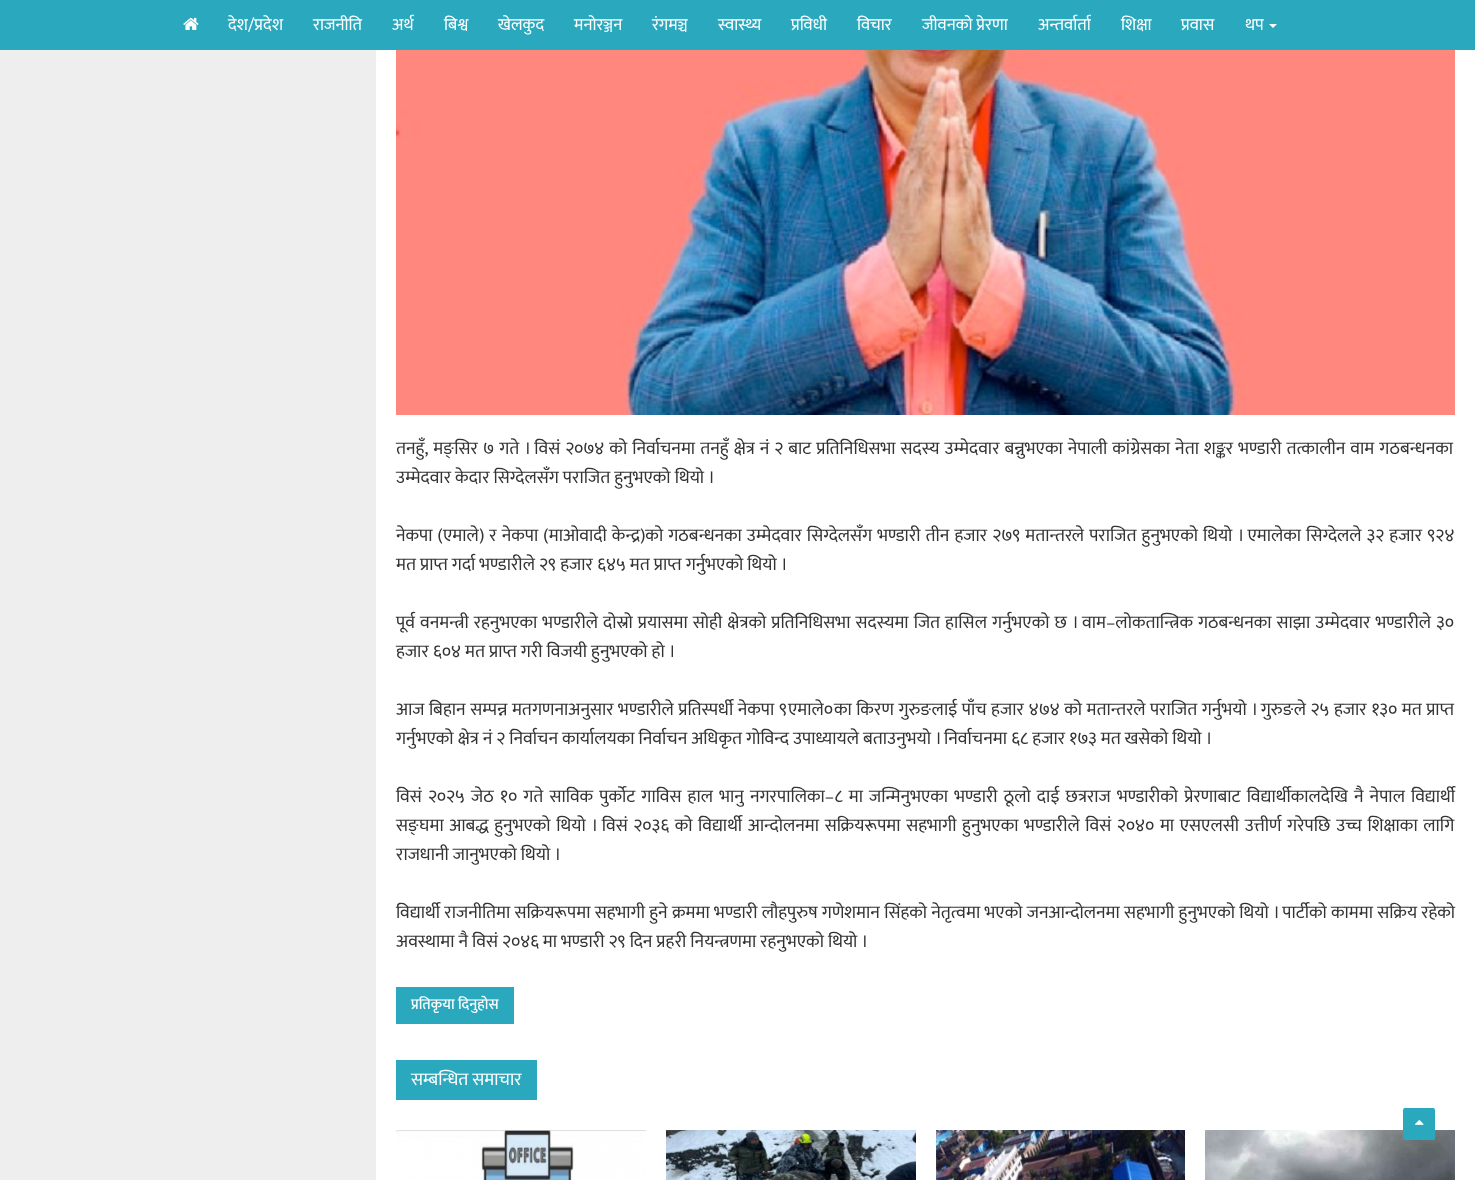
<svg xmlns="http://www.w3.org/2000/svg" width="1475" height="1180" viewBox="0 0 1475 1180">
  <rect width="100%" height="100%" fill="#eee"/>
  <path d="M0 0h1475v50H0z" fill="#29a8be"/>
  <image x="183" y="17" width="16" height="13" href="img/1.png"/>
  <path d="M1269 24H1277L1273 28Z" fill="#fff"/>
  <path d="M376 50h1099v1130H376z" fill="#fff"/>
  <image x="396" y="50" width="1059" height="365" href="img/2.png"/>
  <path d="M396 987h118v37H396z" fill="#29a8be"/>
  <path d="M396 1060h141v40H396z" fill="#29a8be"/>
  <image x="396" y="1130" width="250" height="50" href="img/3.png"/>
  <image x="666" y="1130" width="250" height="50" href="img/4.png"/>
  <image x="936" y="1130" width="249" height="50" href="img/5.png"/>
  <image x="1205" y="1130" width="250" height="50" href="img/6.png"/>
  <rect x="1403" y="1108" width="32" height="32" rx="2" fill="#29a8be"/>
  <image x="1415" y="1120" width="9" height="5" href="img/7.png"/>
  <g font-family="Ek Mukta" font-size="17" fill="#fff">
    <text x="228" y="30">देश/प्रदेश</text>
    <text x="313" y="30">राजनीति</text>
    <text x="392" y="30">अर्थ</text>
    <text x="444" y="30">बिश्व</text>
    <text x="498" y="30">खेलकुद</text>
    <text x="574" y="30">मनोरञ्जन</text>
    <text x="652" y="30">रंगमञ्च</text>
    <text x="718" y="30">स्वास्थ्य</text>
    <text x="791" y="30">प्रविधी</text>
    <text x="857" y="30">विचार</text>
    <text x="922" y="30">जीवनको प्रेरणा</text>
    <text x="1038" y="30">अन्तर्वार्ता</text>
    <text x="1121" y="30">शिक्षा</text>
    <text x="1181" y="30">प्रवास</text>
    <text x="1245" y="30">थप</text>
  </g>
  <g font-family="Ek Mukta" font-size="18" fill="#333">
    <text x="396" y="454" word-spacing="1">तनहुँ, मङ्सिर ७ गते । विसं २०७४ को निर्वाचनमा तनहुँ क्षेत्र नं २ बाट प्रतिनिधिसभा सदस्य उम्मेदवार बन्नुभएका नेपाली कांग्रेसका नेता शङ्कर भण्डारी तत्कालीन वाम गठबन्धनका</text>
    <text x="396" y="483">उम्मेदवार केदार सिग्देलसँग पराजित हुनुभएको थियो ।</text>
    <text x="396" y="541" word-spacing="1">नेकपा (एमाले) र नेकपा (माओवादी केन्द्र)को गठबन्धनका उम्मेदवार सिग्देलसँग भण्डारी तीन हजार २७९ मतान्तरले पराजित हुनुभएको थियो । एमालेका सिग्देलले ३२ हजार ९२४</text>
    <text x="396" y="570">मत प्राप्त गर्दा भण्डारीले २९ हजार ६४५ मत प्राप्त गर्नुभएको थियो ।</text>
    <text x="396" y="628" word-spacing="1">पूर्व वनमन्त्री रहनुभएका भण्डारीले दोस्रो प्रयासमा सोही क्षेत्रको प्रतिनिधिसभा सदस्यमा जित हासिल गर्नुभएको छ । वाम–लोकतान्त्रिक गठबन्धनका साझा उम्मेदवार भण्डारीले ३०</text>
    <text x="396" y="657">हजार ६०४ मत प्राप्त गरी विजयी हुनुभएको हो ।</text>
    <text x="396" y="715" word-spacing="0.5">आज बिहान सम्पन्न मतगणनाअनुसार भण्डारीले प्रतिस्पर्धी नेकपा ९एमाले०का किरण गुरुङलाई पाँच हजार ४७४ को मतान्तरले पराजित गर्नुभयो । गुरुङले २५ हजार १३० मत प्राप्त</text>
    <text x="396" y="744">गर्नुभएको क्षेत्र नं २ निर्वाचन कार्यालयका निर्वाचन अधिकृत गोविन्द उपाध्यायले बताउनुभयो । निर्वाचनमा ६८ हजार १७३ मत खसेको थियो ।</text>
    <text x="396" y="802" word-spacing="2.1">विसं २०२५ जेठ १० गते साविक पुर्कोट गाविस हाल भानु नगरपालिका–८ मा जन्मिनुभएका भण्डारी ठूलो दाई छत्रराज भण्डारीको प्रेरणाबाट विद्यार्थीकालदेखि नै नेपाल विद्यार्थी</text>
    <text x="396" y="831" word-spacing="1.6">सङ्घमा आबद्ध हुनुभएको थियो । विसं २०३६ को विद्यार्थी आन्दोलनमा सक्रियरूपमा सहभागी हुनुभएका भण्डारीले विसं २०४० मा एसएलसी उत्तीर्ण गरेपछि उच्च शिक्षाका लागि</text>
    <text x="396" y="860">राजधानी जानुभएको थियो ।</text>
    <text x="396" y="918" word-spacing="0.25">विद्यार्थी राजनीतिमा सक्रियरूपमा सहभागी हुने क्रममा भण्डारी लौहपुरुष गणेशमान सिंहको नेतृत्वमा भएको जनआन्दोलनमा सहभागी हुनुभएको थियो । पार्टीको काममा सक्रिय रहेको</text>
    <text x="396" y="947">अवस्थामा नै विसं २०४६ मा भण्डारी २९ दिन प्रहरी नियन्त्रणमा रहनुभएको थियो ।</text>
  </g>
  <text x="411" y="1009" font-family="Ek Mukta" font-size="15" font-weight="500" fill="#fff">प्रतिकृया दिनुहोस</text>
  <text x="411" y="1085" font-family="Ek Mukta" font-size="18" fill="#fff">सम्बन्धित समाचार</text>
</svg>
